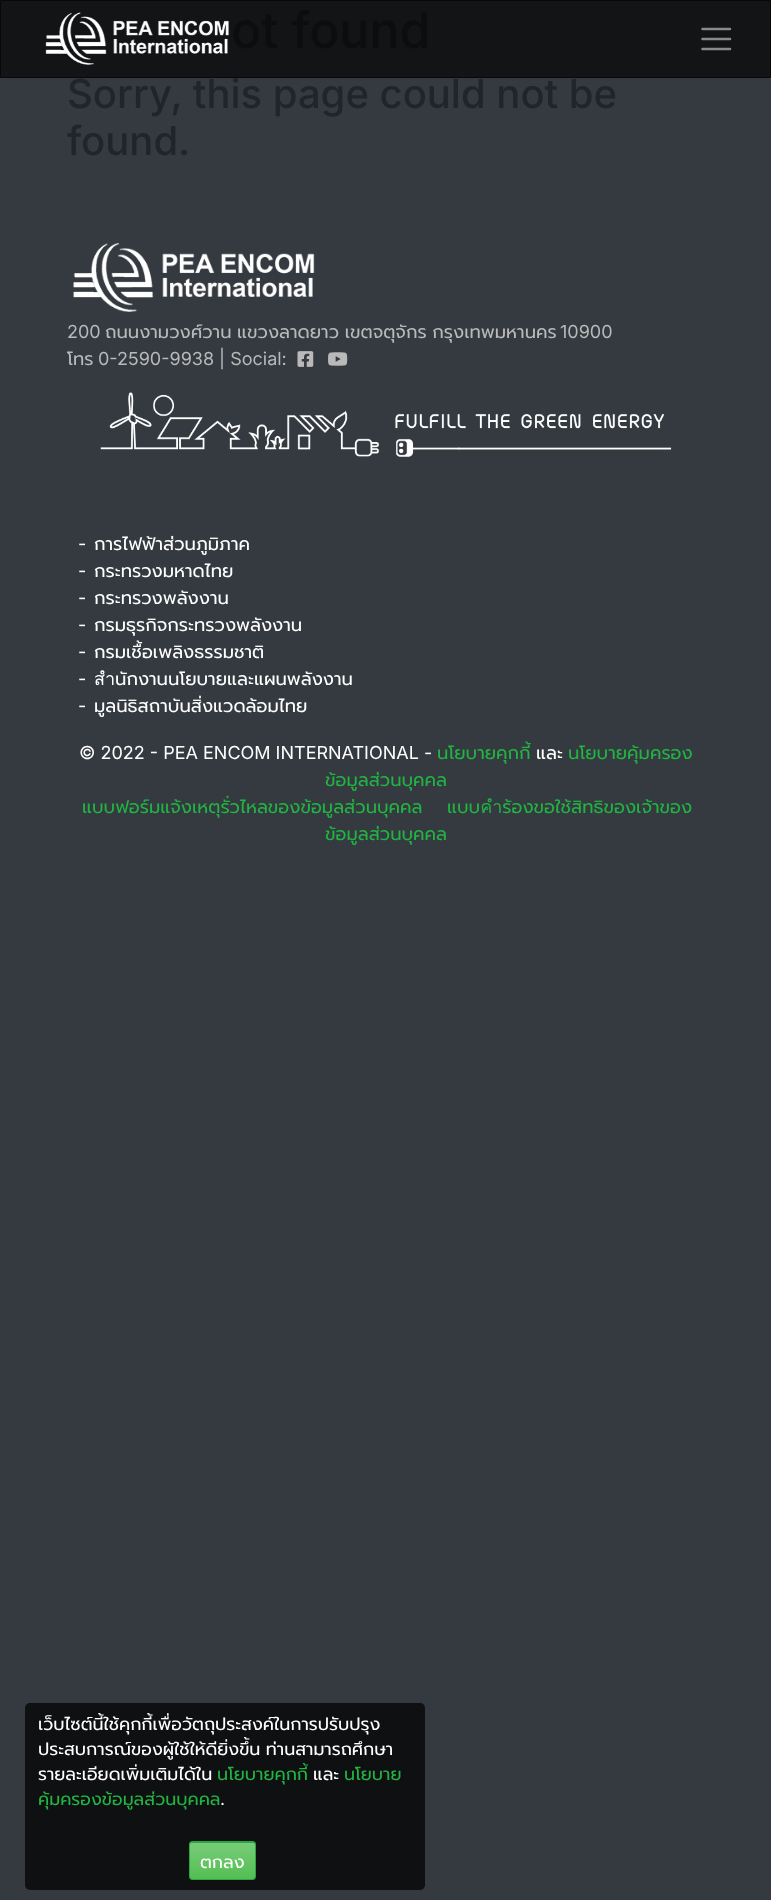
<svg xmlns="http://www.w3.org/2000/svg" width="771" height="1900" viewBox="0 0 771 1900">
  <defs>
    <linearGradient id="g1" gradientUnits="userSpaceOnUse" x1="223" y1="1843" x2="223" y2="1879"><stop offset="0" stop-color="#78cc78"/><stop offset="0.6" stop-color="#62c462"/><stop offset="1" stop-color="#53be53"/></linearGradient>
  </defs>
  <rect width="100%" height="100%" fill="#343a40"/>
  <image x="73" y="243" width="242" height="69" href="img/2.png"/>
  <image x="297" y="351" width="17" height="16" href="img/3.png"/>
  <image x="328" y="352" width="20" height="14" href="img/4.png"/>
  <image x="100" y="392" width="572" height="65" href="img/5.png"/>
  <rect x="25" y="1703" width="400" height="187" rx="5" fill="#0f1012"/>
  <rect x="189" y="1841" width="67" height="39" rx="4" fill="#28a745"/>
  <path d="M190 1843h65v36H190z" fill="url(#g1)"/>
  <rect x="189.5" y="1841.5" width="66" height="38" rx="3.5" fill="none" stroke="#28a745"/>
  <text x="231" y="48" font-family="Inter" font-size="50" font-weight="500" fill="#212529">ot found</text>
  <text x="67" y="108" font-family="Inter" font-size="40" font-weight="500" fill="#212529">Sorry, this page could not be</text>
  <path d="M0.5 0.5h770v77H0.5z" fill="#000000a6" stroke="#070809"/>
  <path d="M702.5 29H730M702.5 39H730M702.5 49H730" fill="none" stroke="#898a8b" stroke-width="2.5" stroke-linecap="round"/>
  <image x="45" y="12" width="184" height="53" href="img/1.png"/>
  <text x="67" y="155" font-family="Inter" font-size="40" font-weight="500" fill="#212529">found.</text>
  <text x="67" y="338" font-family="Inter" font-size="18" fill="#b9b9b9">200</text>
  <text x="105" y="338" word-spacing="-1" font-family="Prompt" font-size="18" fill="#b9b9b9">ถนนงามวงศ์วาน แขวงลาดยาว เขตจตุจักร กรุงเทพมหานคร</text>
  <text x="560" y="338" font-family="Inter" font-size="18" fill="#b9b9b9">10900</text>
  <text x="67" y="365" font-family="Prompt" font-size="18" fill="#b9b9b9">โทร</text>
  <text x="98" y="365" font-family="Inter" font-size="18" fill="#b9b9b9">0-2590-9938 | Social:</text>
  <text x="78" y="550" font-family="Inter" font-size="18" fill="#fff">-</text>
  <text x="94" y="550" font-family="Prompt" font-size="18" fill="#fff">การไฟฟ้าส่วนภูมิภาค</text>
  <text x="78" y="577" font-family="Inter" font-size="18" fill="#fff">-</text>
  <text x="94" y="577" font-family="Prompt" font-size="18" fill="#fff">กระทรวงมหาดไทย</text>
  <text x="78" y="604" font-family="Inter" font-size="18" fill="#fff">-</text>
  <text x="94" y="604" font-family="Prompt" font-size="18" fill="#fff">กระทรวงพลังงาน</text>
  <text x="78" y="631" font-family="Inter" font-size="18" fill="#fff">-</text>
  <text x="94" y="631" font-family="Prompt" font-size="18" fill="#fff">กรมธุรกิจกระทรวงพลังงาน</text>
  <text x="78" y="658" font-family="Inter" font-size="18" fill="#fff">-</text>
  <text x="94" y="658" font-family="Prompt" font-size="18" fill="#fff">กรมเชื้อเพลิงธรรมชาติ</text>
  <text x="78" y="685" font-family="Inter" font-size="18" fill="#fff">-</text>
  <text x="94" y="685" font-family="Prompt" font-size="18" fill="#fff">สำนักงานนโยบายและแผนพลังงาน</text>
  <text x="78" y="712" font-family="Inter" font-size="18" fill="#fff">-</text>
  <text x="94" y="712" font-family="Prompt" font-size="18" fill="#fff">มูลนิธิสถาบันสิ่งแวดล้อมไทย</text>
  <text x="79" y="759" font-family="Inter" font-size="18" fill="#fff">© 2022 - PEA ENCOM INTERNATIONAL -</text>
  <text x="437" y="759" font-family="Prompt" font-size="18" fill="#22b443">นโยบายคุกกี้</text>
  <text x="536" y="759" font-family="Prompt" font-size="18" fill="#fff">และ</text>
  <g font-family="Prompt" font-size="18" fill="#22b443">
    <text x="568" y="759">นโยบายคุ้มครอง</text>
    <text x="325" y="786">ข้อมูลส่วนบุคคล</text>
    <text x="82" y="813">แบบฟอร์มแจ้งเหตุรั่วไหลของข้อมูลส่วนบุคคล</text>
    <text x="447" y="813">แบบคำร้องขอใช้สิทธิของเจ้าของ</text>
    <text x="325" y="840">ข้อมูลส่วนบุคคล</text>
  </g>
  <g font-family="Prompt" font-size="17.5" fill="#fff">
    <text x="38" y="1730">เว็บไซต์นี้ใช้คุกกี้เพื่อวัตถุประสงค์ในการปรับปรุง</text>
    <text x="38" y="1755" word-spacing="-1">ประสบการณ์ของผู้ใช้ให้ดียิ่งขึ้น ท่านสามารถศึกษา</text>
    <text x="38" y="1780">รายละเอียดเพิ่มเติมได้ใน</text>
  </g>
  <text x="217" y="1780" font-family="Prompt" font-size="17.5" fill="#22b443">นโยบายคุกกี้</text>
  <text x="313" y="1780" font-family="Prompt" font-size="17.5" fill="#fff">และ</text>
  <g font-family="Prompt" font-size="17.5" fill="#22b443">
    <text x="344" y="1780">นโยบาย</text>
    <text x="38" y="1805">คุ้มครองข้อมูลส่วนบุคคล</text>
  </g>
  <text x="220" y="1805" font-family="Inter" font-size="17.5" fill="#fff">.</text>
  <text x="200" y="1868" font-family="Prompt" font-size="17.5" fill="#fff">ตกลง</text>
</svg>
